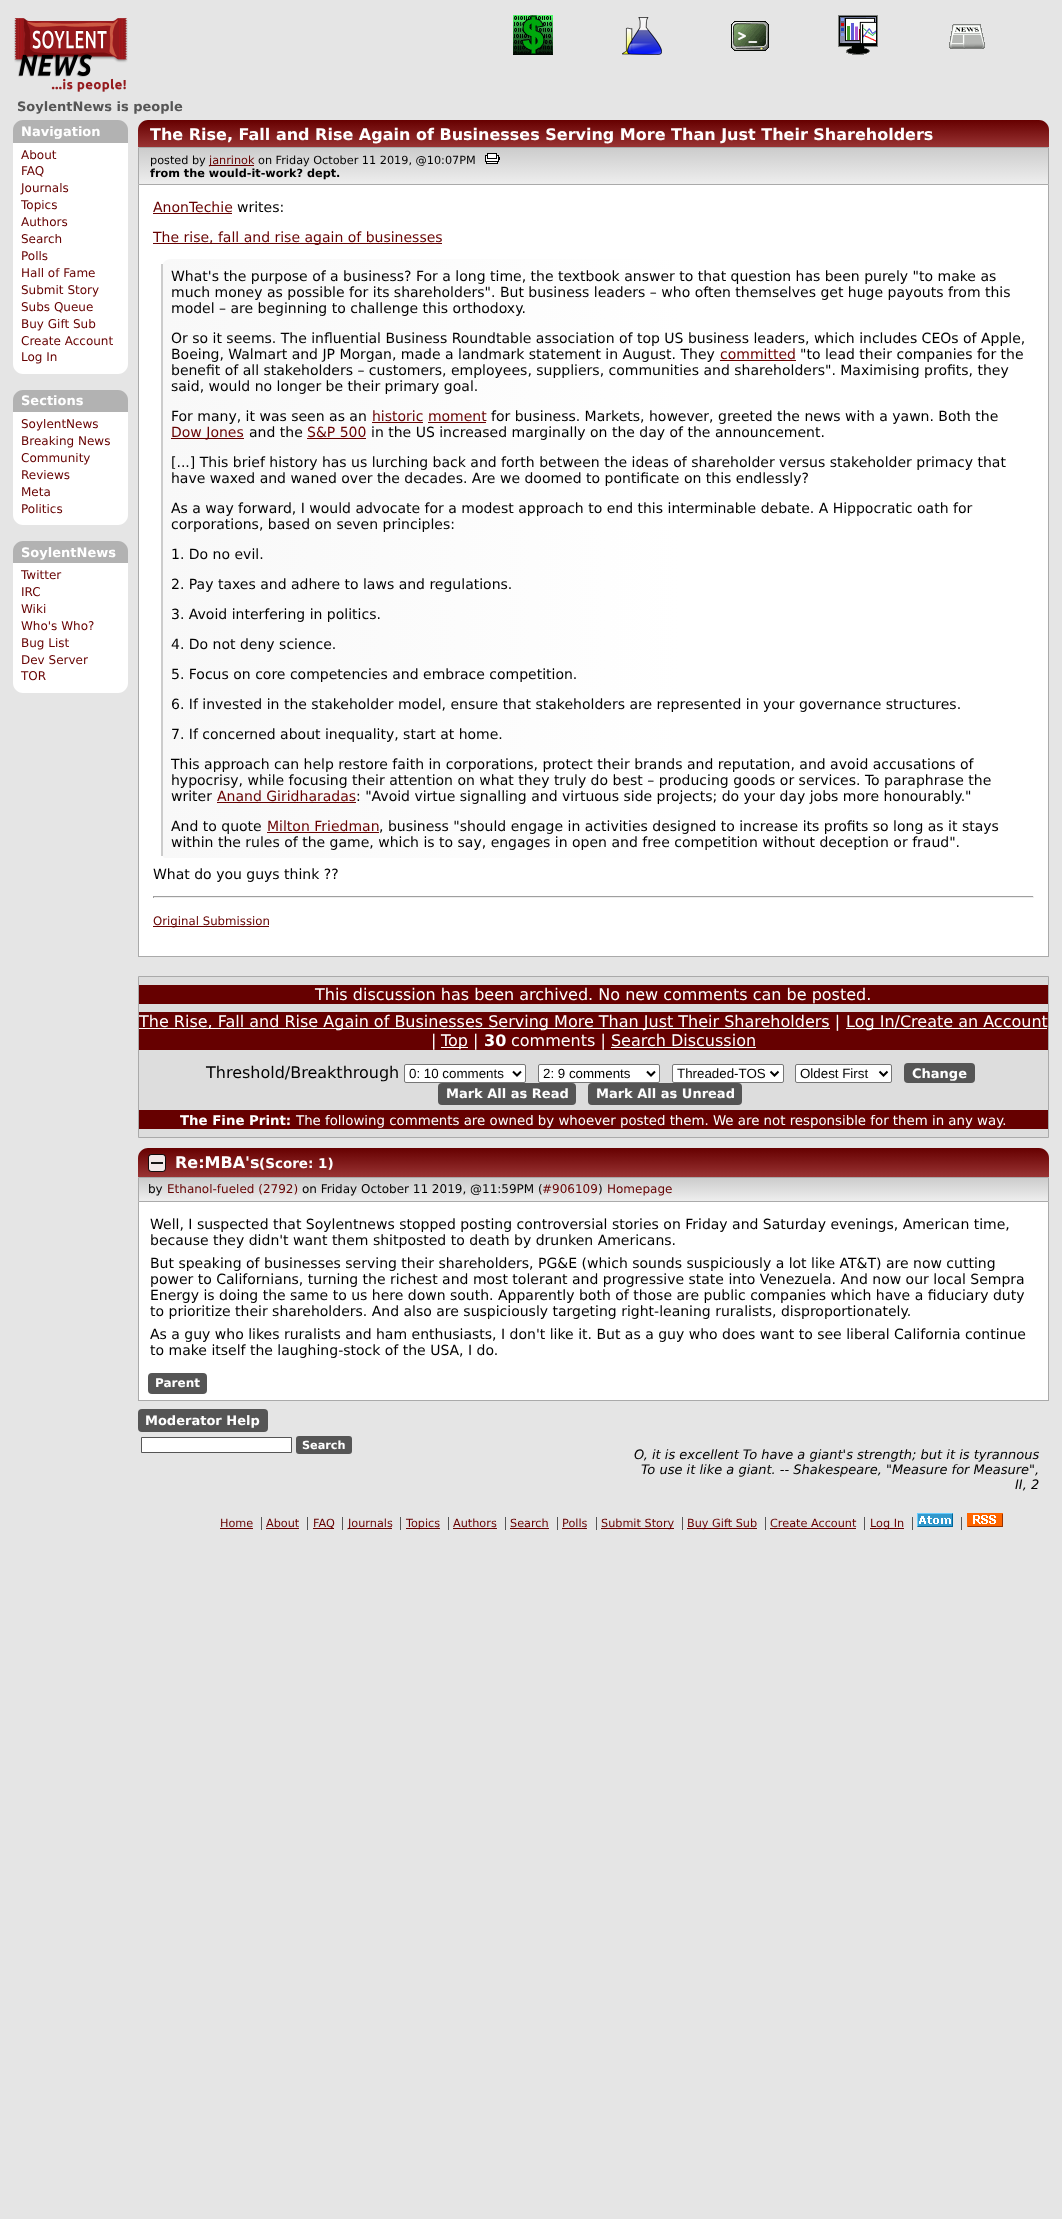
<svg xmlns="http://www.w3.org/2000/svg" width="1062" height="2219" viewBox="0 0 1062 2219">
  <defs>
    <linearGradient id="g1" gradientUnits="userSpaceOnUse" x1="594" y1="120" x2="594" y2="147"><stop offset="0" stop-color="#600"/><stop offset="1" stop-color="#933"/></linearGradient>
    <linearGradient id="g2" gradientUnits="userSpaceOnUse" x1="594" y1="148" x2="594" y2="184"><stop offset="0" stop-color="#ccc"/><stop offset="1" stop-color="#eee"/></linearGradient>
    <clipPath id="clip1"><path d="M171 259H1026V858H166C163 858 161 856 161 853V269C161 263.5 165.5 259 171 259Z"/></clipPath>
    <linearGradient id="g3" gradientUnits="userSpaceOnUse" x1="163" y1="559" x2="1026" y2="559"><stop offset="0" stop-color="#f8f8f8"/><stop offset="0.6" stop-color="#fff"/></linearGradient>
    <linearGradient id="g4" gradientUnits="userSpaceOnUse" x1="594" y1="1148" x2="594" y2="1177"><stop offset="0" stop-color="#600"/><stop offset="1" stop-color="#933"/></linearGradient>
    <linearGradient id="g5" gradientUnits="userSpaceOnUse" x1="594" y1="1178" x2="594" y2="1201"><stop offset="0" stop-color="#ccc"/><stop offset="1" stop-color="#eee"/></linearGradient>
  </defs>
  <rect width="100%" height="100%" fill="#e5e5e5"/>
  <image x="14" y="18" width="114" height="74" href="img/1.png"/>
  <image x="513" y="15" width="40" height="40" href="img/2.png"/>
  <image x="622" y="17" width="40" height="38" href="img/3.png"/>
  <image x="731" y="21" width="38" height="30" href="img/4.png"/>
  <image x="838" y="15" width="40" height="40" href="img/5.png"/>
  <image x="949" y="24" width="36" height="25" href="img/6.png"/>
  <path d="M23 120H118C123.5 120 128 124.5 128 130V143H13V130C13 124.5 17.5 120 23 120Z" fill="#b2b2b2"/>
  <path d="M13 143H128V364C128 369.5 123.5 374 118 374H23C17.5 374 13 369.5 13 364Z" fill="#fff"/>
  <path d="M23 390H118C123.5 390 128 394.5 128 400V412H13V400C13 394.5 17.5 390 23 390Z" fill="#b2b2b2"/>
  <path d="M13 412H128V515C128 520.5 123.5 525 118 525H23C17.5 525 13 520.5 13 515Z" fill="#fff"/>
  <path d="M23 541H118C123.5 541 128 545.5 128 551V563H13V551C13 545.5 17.5 541 23 541Z" fill="#b2b2b2"/>
  <path d="M13 563H128V683C128 688.5 123.5 693 118 693H23C17.5 693 13 688.5 13 683Z" fill="#fff"/>
  <path d="M148 120H1039C1044.5 120 1049 124.5 1049 130V147H138V130C138 124.5 142.5 120 148 120Z" fill="url(#g1)"/>
  <path d="M139 148h909v36H139z" fill="url(#g2)"/>
  <path d="M138.5 147.5h910v37H138.5z" fill="none" stroke="#aaa"/>
  <path d="M209 165h45v1H209z" fill="#600"/>
  <image x="485" y="153" width="15" height="11" href="img/7.png"/>
  <path d="M139 185h909v771H139z" fill="#fff"/>
  <path d="M1048 185h1v772H1048z" fill="#aaa"/>
  <path d="M138 956h911v1H138z" fill="#aaa"/>
  <path d="M138 185h1v772H138z" fill="#aaa"/>
  <path d="M153 213h79v1H153z" fill="#600"/>
  <path d="M153 243h289v1H153z" fill="#600"/>
  <g clip-path="url(#clip1)">
    <path d="M163 259h863v599H163z" fill="url(#g3)"/>
  </g>
  <path d="M161 264h2v592H161z" fill="#ccc"/>
  <path d="M720 360h76v1H720z" fill="#600"/>
  <path d="M372 422h51v1H372z" fill="#600"/>
  <path d="M428 422h58v1H428z" fill="#600"/>
  <path d="M171 438h73v1H171z" fill="#600"/>
  <path d="M307 438h59v1H307z" fill="#600"/>
  <path d="M217 802h139v1H217z" fill="#600"/>
  <path d="M267 832h112v1H267z" fill="#600"/>
  <path d="M153 896h881v1H153z" fill="#9f9f9f"/>
  <path d="M1033 896h1v2H1033z" fill="#eee"/>
  <path d="M153 897h881v1H153z" fill="#eee"/>
  <path d="M153 896h1v2H153z" fill="#9f9f9f"/>
  <path d="M153 926h116v1H153z" fill="#600"/>
  <path d="M138.5 976.5h910v161H138.5z" fill="#ddd" stroke="#aaa"/>
  <path d="M139 985h909v19H139z" fill="#600"/>
  <path d="M139 1012h909v38H139z" fill="#600"/>
  <path d="M139 1028h691v1H139z" fill="#fff"/>
  <path d="M846 1028h201v1H846z" fill="#fff"/>
  <path d="M441 1047h27v1H441z" fill="#fff"/>
  <path d="M611 1047h145v1H611z" fill="#fff"/>
  <rect x="404.5" y="1064.5" width="121" height="18" rx="1.5" fill="#fff" stroke="#767676"/>
  <path d="M513 1071.5L517 1075.5L521 1071.5" fill="none" stroke="#000" stroke-width="2"/>
  <rect x="538.5" y="1064.5" width="121" height="18" rx="1.5" fill="#fff" stroke="#767676"/>
  <path d="M647 1071.5L651 1075.5L655 1071.5" fill="none" stroke="#000" stroke-width="2"/>
  <rect x="672.5" y="1064.5" width="111" height="18" rx="1.5" fill="#fff" stroke="#767676"/>
  <path d="M770.5 1071.5L774.5 1075.5L778.5 1071.5" fill="none" stroke="#000" stroke-width="2"/>
  <rect x="795.5" y="1064.5" width="96" height="18" rx="1.5" fill="#fff" stroke="#767676"/>
  <path d="M879.5 1071.5L883.5 1075.5L887.5 1071.5" fill="none" stroke="#000" stroke-width="2"/>
  <rect x="904" y="1063" width="71" height="20" rx="4" fill="#555"/>
  <rect x="438" y="1083" width="138" height="22" rx="4" fill="#555"/>
  <rect x="588" y="1083" width="154" height="22" rx="4" fill="#555"/>
  <path d="M139 1110h909v19H139z" fill="#600"/>
  <path d="M148 1148H1039C1044.5 1148 1049 1152.5 1049 1158V1177H138V1158C138 1152.5 142.5 1148 148 1148Z" fill="url(#g4)"/>
  <image x="148" y="1154" width="18" height="18" href="img/8.png"/>
  <path d="M139 1178h909v23H139z" fill="url(#g5)"/>
  <path d="M138.5 1177.5h910v24H138.5z" fill="none" stroke="#aaa"/>
  <path d="M139 1202h909v198H139z" fill="#fff"/>
  <path d="M1048 1202h1v199H1048z" fill="#aaa"/>
  <path d="M138 1202h1v165H138z" fill="#aaa"/>
  <path d="M138 1400h911v1H138z" fill="#aaa"/>
  <path d="M138 1367h1v34H138z" fill="#aaa"/>
  <rect x="148" y="1373" width="59" height="21" rx="4" fill="#555"/>
  <rect x="138" y="1409" width="130" height="23" rx="4" fill="#555"/>
  <path d="M141.5 1437.5h150v15H141.5z" fill="#fff" stroke="#555"/>
  <rect x="296" y="1436" width="56" height="18" rx="3" fill="#555"/>
  <path d="M220 1528h33v1H220z" fill="#600"/>
  <path d="M261 1517h1v13H261z" fill="#555"/>
  <path d="M266 1528h33v1H266z" fill="#600"/>
  <path d="M307 1517h1v13H307z" fill="#555"/>
  <path d="M313 1528h21v1H313z" fill="#600"/>
  <path d="M342 1517h1v13H342z" fill="#555"/>
  <path d="M348 1528h44v1H348z" fill="#600"/>
  <path d="M400 1517h1v13H400z" fill="#555"/>
  <path d="M406 1528h34v1H406z" fill="#600"/>
  <path d="M448 1517h1v13H448z" fill="#555"/>
  <path d="M453 1528h44v1H453z" fill="#600"/>
  <path d="M505 1517h1v13H505z" fill="#555"/>
  <path d="M510 1528h39v1H510z" fill="#600"/>
  <path d="M557 1517h1v13H557z" fill="#555"/>
  <path d="M562 1528h25v1H562z" fill="#600"/>
  <path d="M596 1517h1v13H596z" fill="#555"/>
  <path d="M601 1528h73v1H601z" fill="#600"/>
  <path d="M682 1517h1v13H682z" fill="#555"/>
  <path d="M687 1528h70v1H687z" fill="#600"/>
  <path d="M765 1517h1v13H765z" fill="#555"/>
  <path d="M770 1528h86v1H770z" fill="#600"/>
  <path d="M864 1517h1v13H864z" fill="#555"/>
  <path d="M870 1528h34v1H870z" fill="#600"/>
  <path d="M912 1517h1v13H912z" fill="#555"/>
  <image x="917" y="1513" width="36" height="14" href="img/9.png"/>
  <path d="M961 1517h1v13H961z" fill="#555"/>
  <image x="967" y="1513" width="36" height="14" href="img/10.png"/>
  <text x="17" y="111" font-family="DejaVu Sans" font-size="13" font-weight="bold" fill="#555">SoylentNews is people</text>
  <text x="21" y="136" font-family="DejaVu Sans" font-size="13" font-weight="bold" fill="#fff">Navigation</text>
  <g font-family="DejaVu Sans" font-size="12" fill="#600">
    <text x="21" y="159">About</text>
    <text x="21" y="175">FAQ</text>
    <text x="21" y="192">Journals</text>
    <text x="21" y="209">Topics</text>
    <text x="21" y="226">Authors</text>
    <text x="21" y="243">Search</text>
    <text x="21" y="260">Polls</text>
    <text x="21" y="277">Hall of Fame</text>
    <text x="21" y="294">Submit Story</text>
    <text x="21" y="311">Subs Queue</text>
    <text x="21" y="328">Buy Gift Sub</text>
    <text x="21" y="345">Create Account</text>
    <text x="21" y="361">Log In</text>
  </g>
  <text x="21" y="405" font-family="DejaVu Sans" font-size="13" font-weight="bold" fill="#fff">Sections</text>
  <g font-family="DejaVu Sans" font-size="12" fill="#600">
    <text x="21" y="428">SoylentNews</text>
    <text x="21" y="445">Breaking News</text>
    <text x="21" y="462">Community</text>
    <text x="21" y="479">Reviews</text>
    <text x="21" y="496">Meta</text>
    <text x="21" y="513">Politics</text>
  </g>
  <text x="21" y="557" font-family="DejaVu Sans" font-size="13" font-weight="bold" fill="#fff">SoylentNews</text>
  <g font-family="DejaVu Sans" font-size="12" fill="#600">
    <text x="21" y="579">Twitter</text>
    <text x="21" y="596">IRC</text>
    <text x="21" y="613">Wiki</text>
    <text x="21" y="630">Who's Who?</text>
    <text x="21" y="647">Bug List</text>
    <text x="21" y="664">Dev Server</text>
    <text x="21" y="680">TOR</text>
  </g>
  <text x="150" y="140" font-family="DejaVu Sans" font-size="16" font-weight="bold" fill="#fff">The Rise, Fall and Rise Again of Businesses Serving More Than Just Their Shareholders</text>
  <text x="150" y="164" font-family="DejaVu Sans" font-size="11.25" fill="#000">posted by</text>
  <text x="209" y="164" font-family="DejaVu Sans" font-size="11.25" fill="#600">janrinok</text>
  <text x="258" y="164" font-family="DejaVu Sans" font-size="11.25" fill="#000">on Friday October 11 2019, @10:07PM</text>
  <text x="150" y="177" font-family="DejaVu Sans" font-size="11.25" font-weight="bold" fill="#000">from the would-it-work? dept.</text>
  <text x="153" y="212" font-family="DejaVu Sans" font-size="14" fill="#600">AnonTechie</text>
  <text x="237" y="212" font-family="DejaVu Sans" font-size="14" fill="#000">writes:</text>
  <text x="153" y="242" font-family="DejaVu Sans" font-size="14" fill="#600">The rise, fall and rise again of businesses</text>
  <g font-family="DejaVu Sans" font-size="14" fill="#000">
    <text x="171" y="281">What's the purpose of a business? For a long time, the textbook answer to that question has been purely "to make as</text>
    <text x="171" y="297">much money as possible for its shareholders". But business leaders – who often themselves get huge payouts from this</text>
    <text x="171" y="313">model – are beginning to challenge this orthodoxy.</text>
    <text x="171" y="343">Or so it seems. The influential Business Roundtable association of top US business leaders, which includes CEOs of Apple,</text>
    <text x="171" y="359">Boeing, Walmart and JP Morgan, made a landmark statement in August. They</text>
  </g>
  <text x="720" y="359" font-family="DejaVu Sans" font-size="14" fill="#600">committed</text>
  <g font-family="DejaVu Sans" font-size="14" fill="#000">
    <text x="800" y="359">"to lead their companies for the</text>
    <text x="171" y="375">benefit of all stakeholders – customers, employees, suppliers, communities and shareholders". Maximising profits, they</text>
    <text x="171" y="391">said, would no longer be their primary goal.</text>
    <text x="171" y="421">For many, it was seen as an</text>
  </g>
  <text x="372" y="421" font-family="DejaVu Sans" font-size="14" fill="#600">historic moment</text>
  <text x="491" y="421" font-family="DejaVu Sans" font-size="14" fill="#000">for business. Markets, however, greeted the news with a yawn. Both the</text>
  <text x="171" y="437" font-family="DejaVu Sans" font-size="14" fill="#600">Dow Jones</text>
  <text x="249" y="437" font-family="DejaVu Sans" font-size="14" fill="#000">and the</text>
  <text x="307" y="437" font-family="DejaVu Sans" font-size="14" fill="#600">S&amp;P 500</text>
  <g font-family="DejaVu Sans" font-size="14" fill="#000">
    <text x="371" y="437">in the US increased marginally on the day of the announcement.</text>
    <text x="171" y="467">[...] This brief history has us lurching back and forth between the ideas of shareholder versus stakeholder primacy that</text>
    <text x="171" y="483">have waxed and waned over the decades. Are we doomed to pontificate on this endlessly?</text>
    <text x="171" y="513">As a way forward, I would advocate for a modest approach to end this interminable debate. A Hippocratic oath for</text>
    <text x="171" y="529">corporations, based on seven principles:</text>
    <text x="171" y="559">1. Do no evil.</text>
    <text x="171" y="589">2. Pay taxes and adhere to laws and regulations.</text>
    <text x="171" y="619">3. Avoid interfering in politics.</text>
    <text x="171" y="649">4. Do not deny science.</text>
    <text x="171" y="679">5. Focus on core competencies and embrace competition.</text>
    <text x="171" y="709">6. If invested in the stakeholder model, ensure that stakeholders are represented in your governance structures.</text>
    <text x="171" y="739">7. If concerned about inequality, start at home.</text>
    <text x="171" y="769">This approach can help restore faith in corporations, protect their brands and reputation, and avoid accusations of</text>
    <text x="171" y="785">hypocrisy, while focusing their attention on what they truly do best – producing goods or services. To paraphrase the</text>
    <text x="171" y="801">writer</text>
  </g>
  <text x="217" y="801" font-family="DejaVu Sans" font-size="14" fill="#600">Anand Giridharadas</text>
  <g font-family="DejaVu Sans" font-size="14" fill="#000">
    <text x="356" y="801">: "Avoid virtue signalling and virtuous side projects; do your day jobs more honourably."</text>
    <text x="171" y="831">And to quote</text>
  </g>
  <text x="267" y="831" font-family="DejaVu Sans" font-size="14" fill="#600">Milton Friedman</text>
  <g font-family="DejaVu Sans" font-size="14" fill="#000">
    <text x="379" y="831">, business "should engage in activities designed to increase its profits so long as it stays</text>
    <text x="171" y="847">within the rules of the game, which is to say, engages in open and free competition without deception or fraud".</text>
    <text x="153" y="879">What do you guys think ??</text>
  </g>
  <text x="153" y="925" font-family="DejaVu Sans" font-size="11.75" fill="#600">Original Submission</text>
  <g font-family="DejaVu Sans" font-size="16" fill="#fff">
    <text x="315" y="1000">This discussion has been archived. No new comments can be posted.</text>
    <text x="139" y="1027">The Rise, Fall and Rise Again of Businesses Serving More Than Just Their Shareholders |</text>
    <text x="846" y="1027">Log In/Create an Account</text>
    <text x="431" y="1046">|</text>
    <text x="441" y="1046">Top |</text>
  </g>
  <text x="484" y="1046" font-family="DejaVu Sans" font-size="16" font-weight="bold" fill="#fff">30</text>
  <text x="511" y="1046" font-family="DejaVu Sans" font-size="16" fill="#fff">comments | Search Discussion</text>
  <text x="206" y="1078" font-family="DejaVu Sans" font-size="16" fill="#000">Threshold/Breakthrough</text>
  <g font-family="Liberation Sans" font-size="13.33" fill="#000">
    <text x="409" y="1078">0: 10 comments</text>
    <text x="543" y="1078">2: 9 comments</text>
    <text x="677" y="1078">Threaded-TOS</text>
    <text x="800" y="1078">Oldest First</text>
  </g>
  <g font-family="DejaVu Sans" font-size="13" font-weight="bold" fill="#fff">
    <text x="912" y="1078">Change</text>
    <text x="446" y="1098">Mark All as Read</text>
    <text x="596" y="1098">Mark All as Unread</text>
  </g>
  <text x="180" y="1125" font-family="DejaVu Sans" font-size="13.33" font-weight="bold" fill="#fff">The Fine Print:</text>
  <text x="296" y="1125" font-family="DejaVu Sans" font-size="13.33" fill="#fff">The following comments are owned by whoever posted them. We are not responsible for them in any way.</text>
  <text x="175" y="1168" font-family="DejaVu Sans" font-size="16" font-weight="bold" fill="#fff">Re:MBA's</text>
  <text x="259" y="1168" font-family="DejaVu Sans" font-size="13.5" font-weight="bold" fill="#fff">(Score: 1)</text>
  <text x="148" y="1193" font-family="DejaVu Sans" font-size="12" fill="#000">by</text>
  <text x="167" y="1193" font-family="DejaVu Sans" font-size="12" fill="#600">Ethanol-fueled (2792)</text>
  <text x="302" y="1193" font-family="DejaVu Sans" font-size="12" fill="#000">on Friday October 11 2019, @11:59PM (</text>
  <text x="542" y="1193" font-family="DejaVu Sans" font-size="12" fill="#600">#906109</text>
  <text x="598" y="1193" font-family="DejaVu Sans" font-size="12" fill="#000">)</text>
  <text x="607" y="1193" font-family="DejaVu Sans" font-size="12" fill="#600">Homepage</text>
  <g font-family="DejaVu Sans" font-size="14" fill="#000">
    <text x="150" y="1229">Well, I suspected that Soylentnews stopped posting controversial stories on Friday and Saturday evenings, American time,</text>
    <text x="150" y="1245">because they didn't want them shitposted to death by drunken Americans.</text>
    <text x="150" y="1268">But speaking of businesses serving their shareholders, PG&amp;E (which sounds suspiciously a lot like AT&amp;T) are now cutting</text>
    <text x="150" y="1284">power to Californians, turning the richest and most tolerant and progressive state into Venezuela. And now our local Sempra</text>
    <text x="150" y="1300">Energy is doing the same to us here down south. Apparently both of those are public companies which have a fiduciary duty</text>
    <text x="150" y="1316">to prioritize their shareholders. And also are suspiciously targeting right-leaning ruralists, disproportionately.</text>
    <text x="150" y="1339">As a guy who likes ruralists and ham enthusiasts, I don't like it. But as a guy who does want to see liberal California continue</text>
    <text x="150" y="1355">to make itself the laughing-stock of the USA, I do.</text>
  </g>
  <text x="155" y="1387" font-family="DejaVu Sans" font-size="12" font-weight="bold" fill="#fff">Parent</text>
  <text x="145" y="1425" font-family="DejaVu Sans" font-size="13" font-weight="bold" fill="#fff">Moderator Help</text>
  <text x="302" y="1449" font-family="DejaVu Sans" font-size="11.25" font-weight="bold" fill="#fff">Search</text>
  <g font-family="DejaVu Sans" font-size="13" font-style="italic" fill="#000">
    <text x="634" y="1459">O, it is excellent To have a giant's strength; but it is tyrannous</text>
    <text x="641" y="1474">To use it like a giant. -- Shakespeare, "Measure for Measure",</text>
    <text x="1015" y="1489">II, 2</text>
  </g>
  <g font-family="DejaVu Sans" font-size="11.25" fill="#600">
    <text x="220" y="1527">Home</text>
    <text x="266" y="1527">About</text>
    <text x="313" y="1527">FAQ</text>
    <text x="348" y="1527">Journals</text>
    <text x="406" y="1527">Topics</text>
    <text x="453" y="1527">Authors</text>
    <text x="510" y="1527">Search</text>
    <text x="562" y="1527">Polls</text>
    <text x="601" y="1527">Submit Story</text>
    <text x="687" y="1527">Buy Gift Sub</text>
    <text x="770" y="1527">Create Account</text>
    <text x="870" y="1527">Log In</text>
  </g>
</svg>
